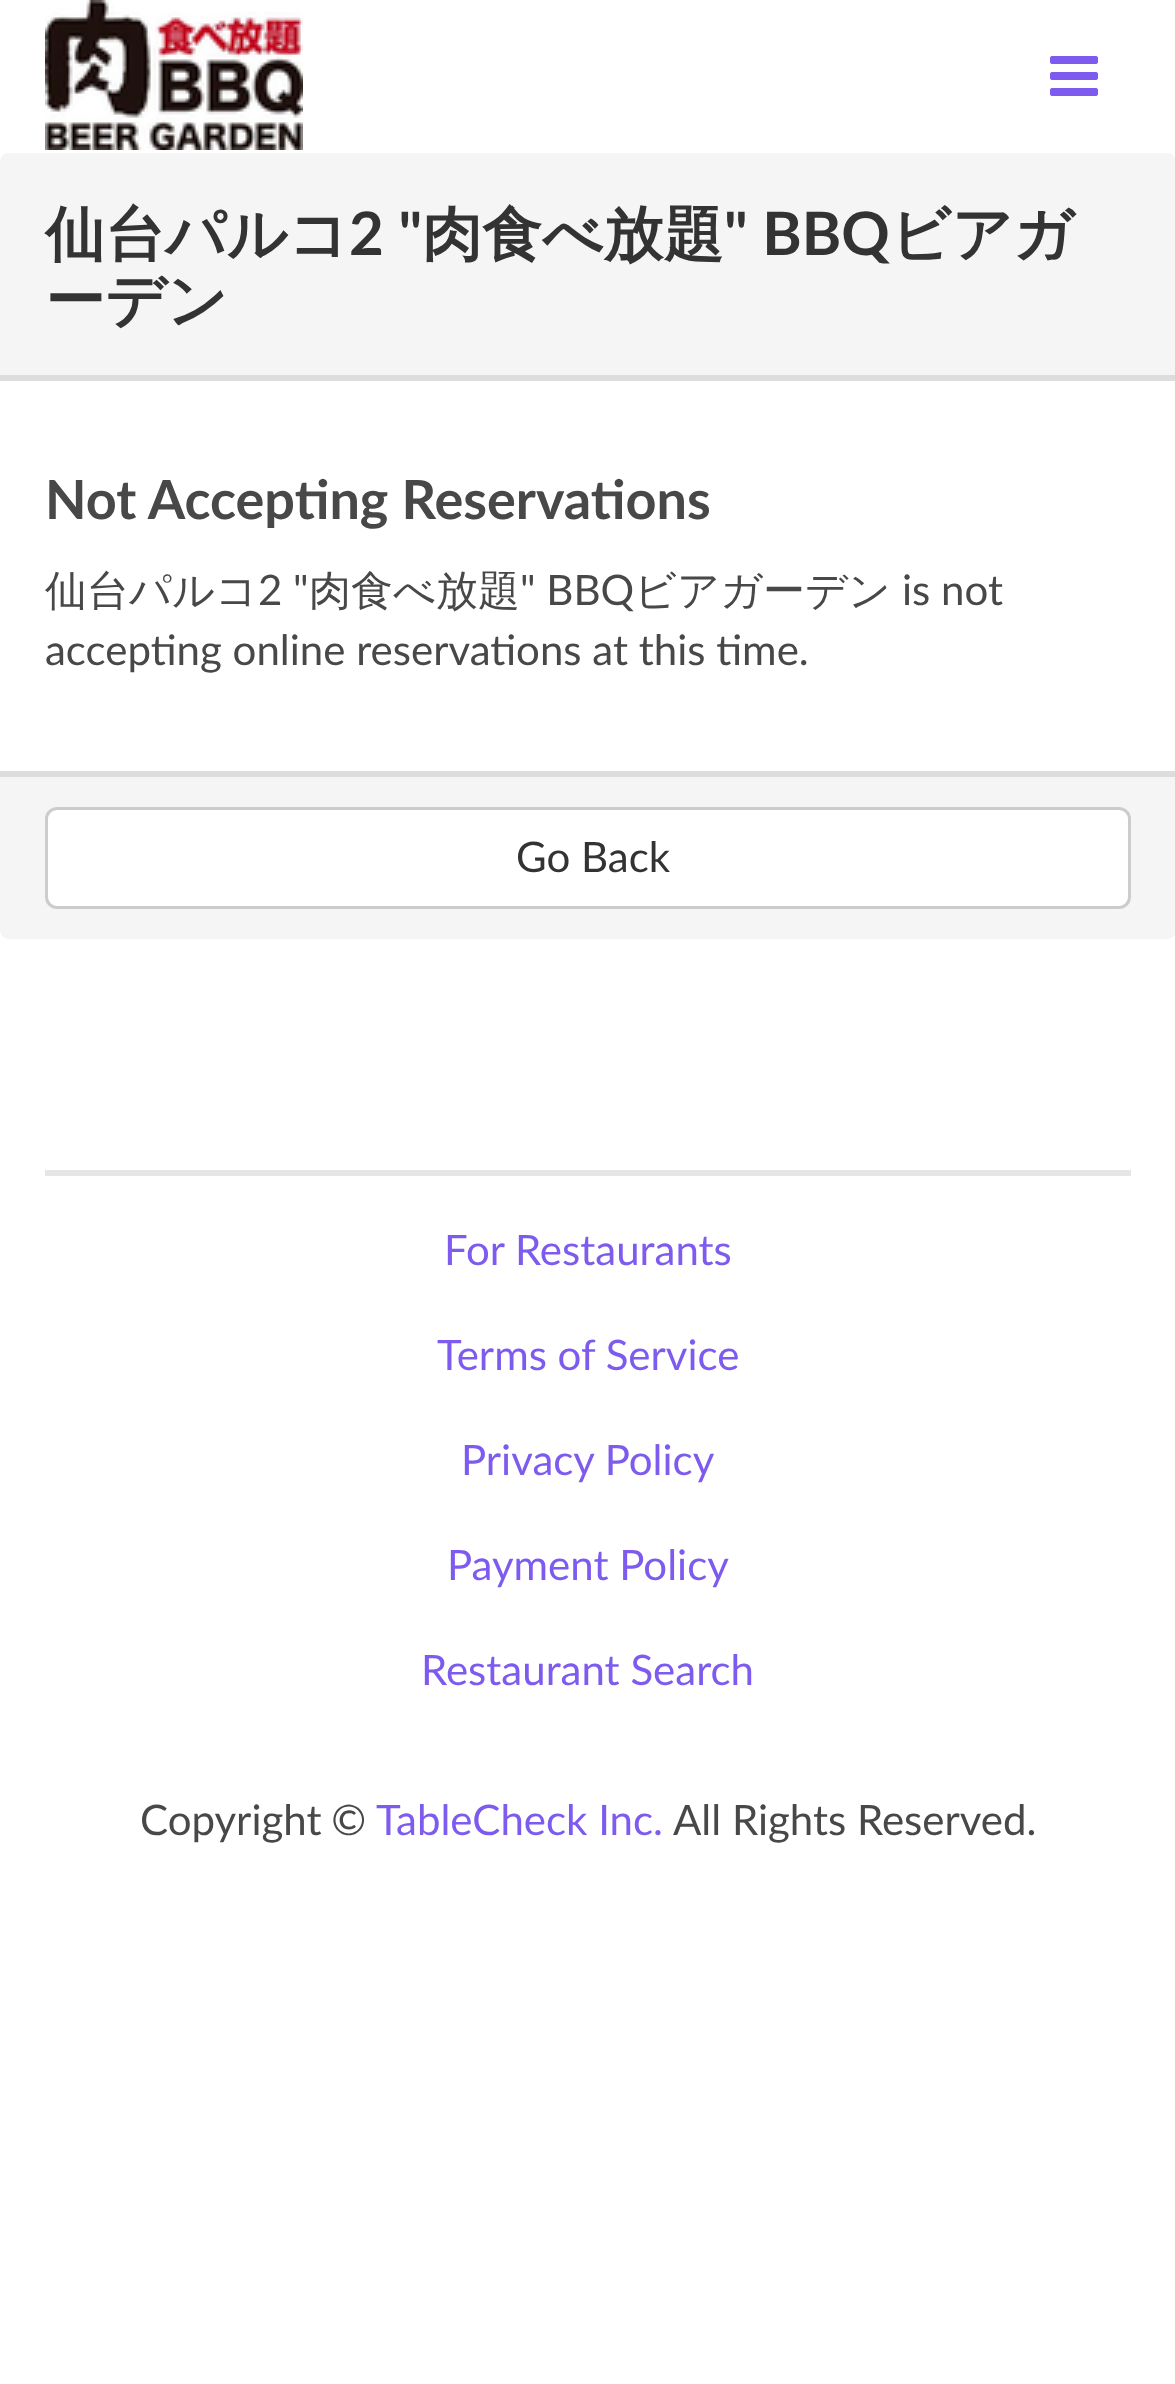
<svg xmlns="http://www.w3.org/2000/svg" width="1175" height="2384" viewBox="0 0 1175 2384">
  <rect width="100%" height="100%" fill="#fff"/>
  <image x="45" y="0" width="258" height="150" href="img/1.png"/>
  <image x="1050" y="56" width="48" height="40" href="img/2.png"/>
  <path d="M9 153H1167C1172 153 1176 157 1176 162V381H0V162C0 157 4 153 9 153Z" fill="#f5f5f5"/>
  <path d="M0 375h1175v6H0z" fill="#ddd"/>
  <path d="M0 771H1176V930C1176 935 1172 939 1167 939H9C4 939 0 935 0 930Z" fill="#f5f5f5"/>
  <path d="M0 771h1175v6H0z" fill="#ddd"/>
  <rect x="46.5" y="808.5" width="1083" height="99" rx="10.5" fill="#fff" stroke="#ccc" stroke-width="3"/>
  <path d="M45 1170h1086v6H45z" fill="#e6e6e6"/>
  <text x="45" y="255" font-family="WenQuanYi Zen Hei" font-size="60" font-weight="bold" fill="#333">仙台パルコ</text>
  <text x="349" y="255" font-family="Lato" font-size="60" font-weight="bold" fill="#333">2 "</text>
  <text x="422" y="255" font-family="WenQuanYi Zen Hei" font-size="60" font-weight="bold" fill="#333">肉食べ放題</text>
  <text x="724" y="255" font-family="Lato" font-size="60" font-weight="bold" fill="#333">" BBQ</text>
  <g font-family="WenQuanYi Zen Hei" font-size="60" font-weight="bold" fill="#333">
    <text x="890" y="255">ビアガ</text>
    <text x="45" y="321">ーデン</text>
  </g>
  <text x="45" y="519" font-family="Lato" font-size="54" font-weight="bold" fill="#484848">Not Accepting Reservations</text>
  <text x="45" y="605" font-family="WenQuanYi Zen Hei" font-size="42" font-weight="500" fill="#484848">仙台パルコ</text>
  <text x="258" y="605" font-family="Lato" font-size="42" fill="#484848">2 "</text>
  <text x="309" y="605" font-family="WenQuanYi Zen Hei" font-size="42" font-weight="500" fill="#484848">肉食べ放題</text>
  <text x="520" y="605" font-family="Lato" font-size="42" fill="#484848">" BBQ</text>
  <text x="634" y="605" font-family="WenQuanYi Zen Hei" font-size="42" font-weight="500" fill="#484848">ビアガーデン</text>
  <g font-family="Lato" font-size="42" fill="#484848">
    <text x="902" y="605">is not</text>
    <text x="45" y="665">accepting online reservations at this time.</text>
  </g>
  <text x="516" y="872" font-family="Lato" font-size="42" fill="#333">Go Back</text>
  <g font-family="Lato" font-size="42" fill="#7e5bef">
    <text x="444" y="1265">For Restaurants</text>
    <text x="437" y="1370">Terms of Service</text>
    <text x="461" y="1475">Privacy Policy</text>
    <text x="447" y="1580">Payment Policy</text>
    <text x="421" y="1685">Restaurant Search</text>
  </g>
  <text x="140" y="1835" word-spacing="-1" font-family="Lato" font-size="42" fill="#484848">Copyright ©</text>
  <text x="376" y="1835" font-family="Lato" font-size="42" fill="#7e5bef">TableCheck Inc.</text>
  <text x="673" y="1835" font-family="Lato" font-size="42" fill="#484848">All Rights Reserved.</text>
</svg>
